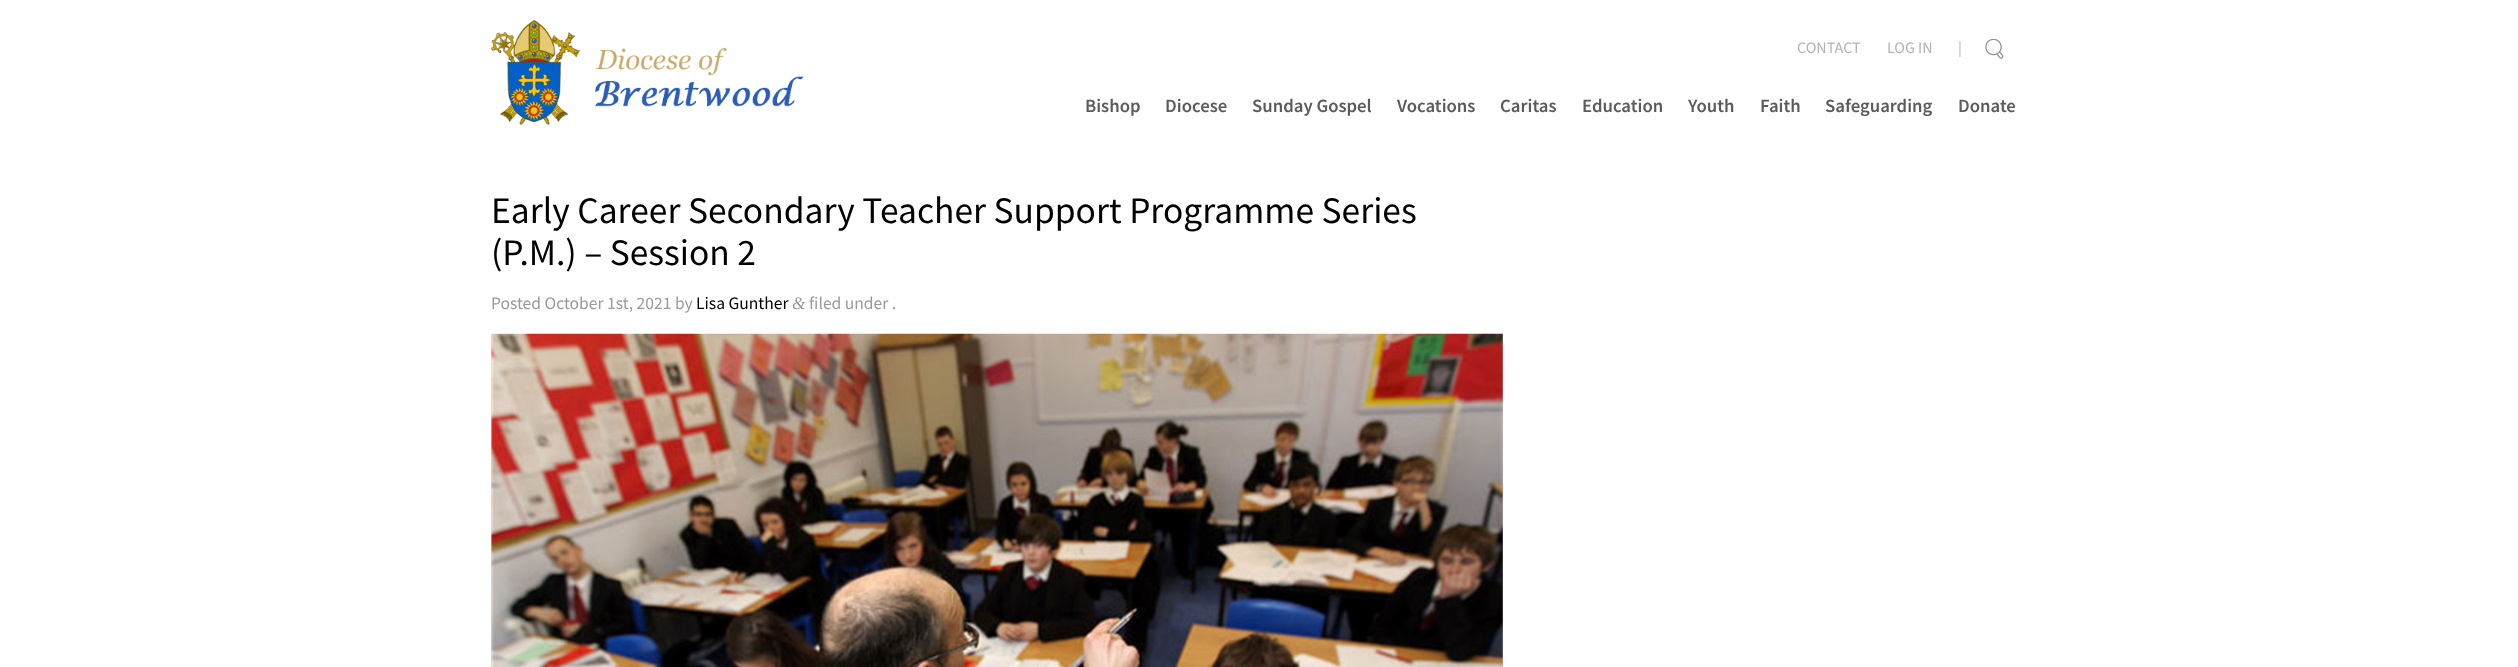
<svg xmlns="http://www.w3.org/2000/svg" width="2518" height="667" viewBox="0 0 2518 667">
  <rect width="100%" height="100%" fill="#fff"/>
  <image x="491" y="20" width="313" height="105" href="img/1.png"/>
  <image x="1985" y="39" width="19" height="20" href="img/2.png"/>
  <image x="491" y="333" width="1012" height="334" href="img/3.png"/>
  <g font-family="Source Sans Pro" font-size="16" fill="#b4b4b4">
    <text x="1797" y="53">CONTACT</text>
    <text x="1887" y="53">LOG IN</text>
    <text x="1958" y="53">|</text>
  </g>
  <g font-family="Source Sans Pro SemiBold" font-size="18.75" font-weight="600" fill="#5b5b5b">
    <text x="1085" y="112">Bishop</text>
    <text x="1165" y="112">Diocese</text>
    <text x="1252" y="112">Sunday Gospel</text>
    <text x="1397" y="112">Vocations</text>
    <text x="1500" y="112">Caritas</text>
    <text x="1582" y="112">Education</text>
    <text x="1688" y="112">Youth</text>
    <text x="1760" y="112">Faith</text>
    <text x="1825" y="112">Safeguarding</text>
    <text x="1958" y="112">Donate</text>
  </g>
  <g font-family="Source Sans Pro" font-size="37.5" fill="#000">
    <text x="491" y="223">Early Career Secondary Teacher Support Programme Series</text>
    <text x="491" y="265">(P.M.) – Session 2</text>
  </g>
  <text x="491" y="309" font-family="Source Sans Pro" font-size="17.5" fill="#999">Posted October 1st, 2021 by</text>
  <text x="696" y="309" font-family="Source Sans Pro" font-size="17.5" fill="#000">Lisa Gunther</text>
  <text x="792" y="309" font-family="Liberation Serif" font-size="17.5" font-style="italic" fill="#999">&amp;</text>
  <text x="809" y="309" font-family="Source Sans Pro" font-size="17.5" fill="#999">filed under .</text>
</svg>
